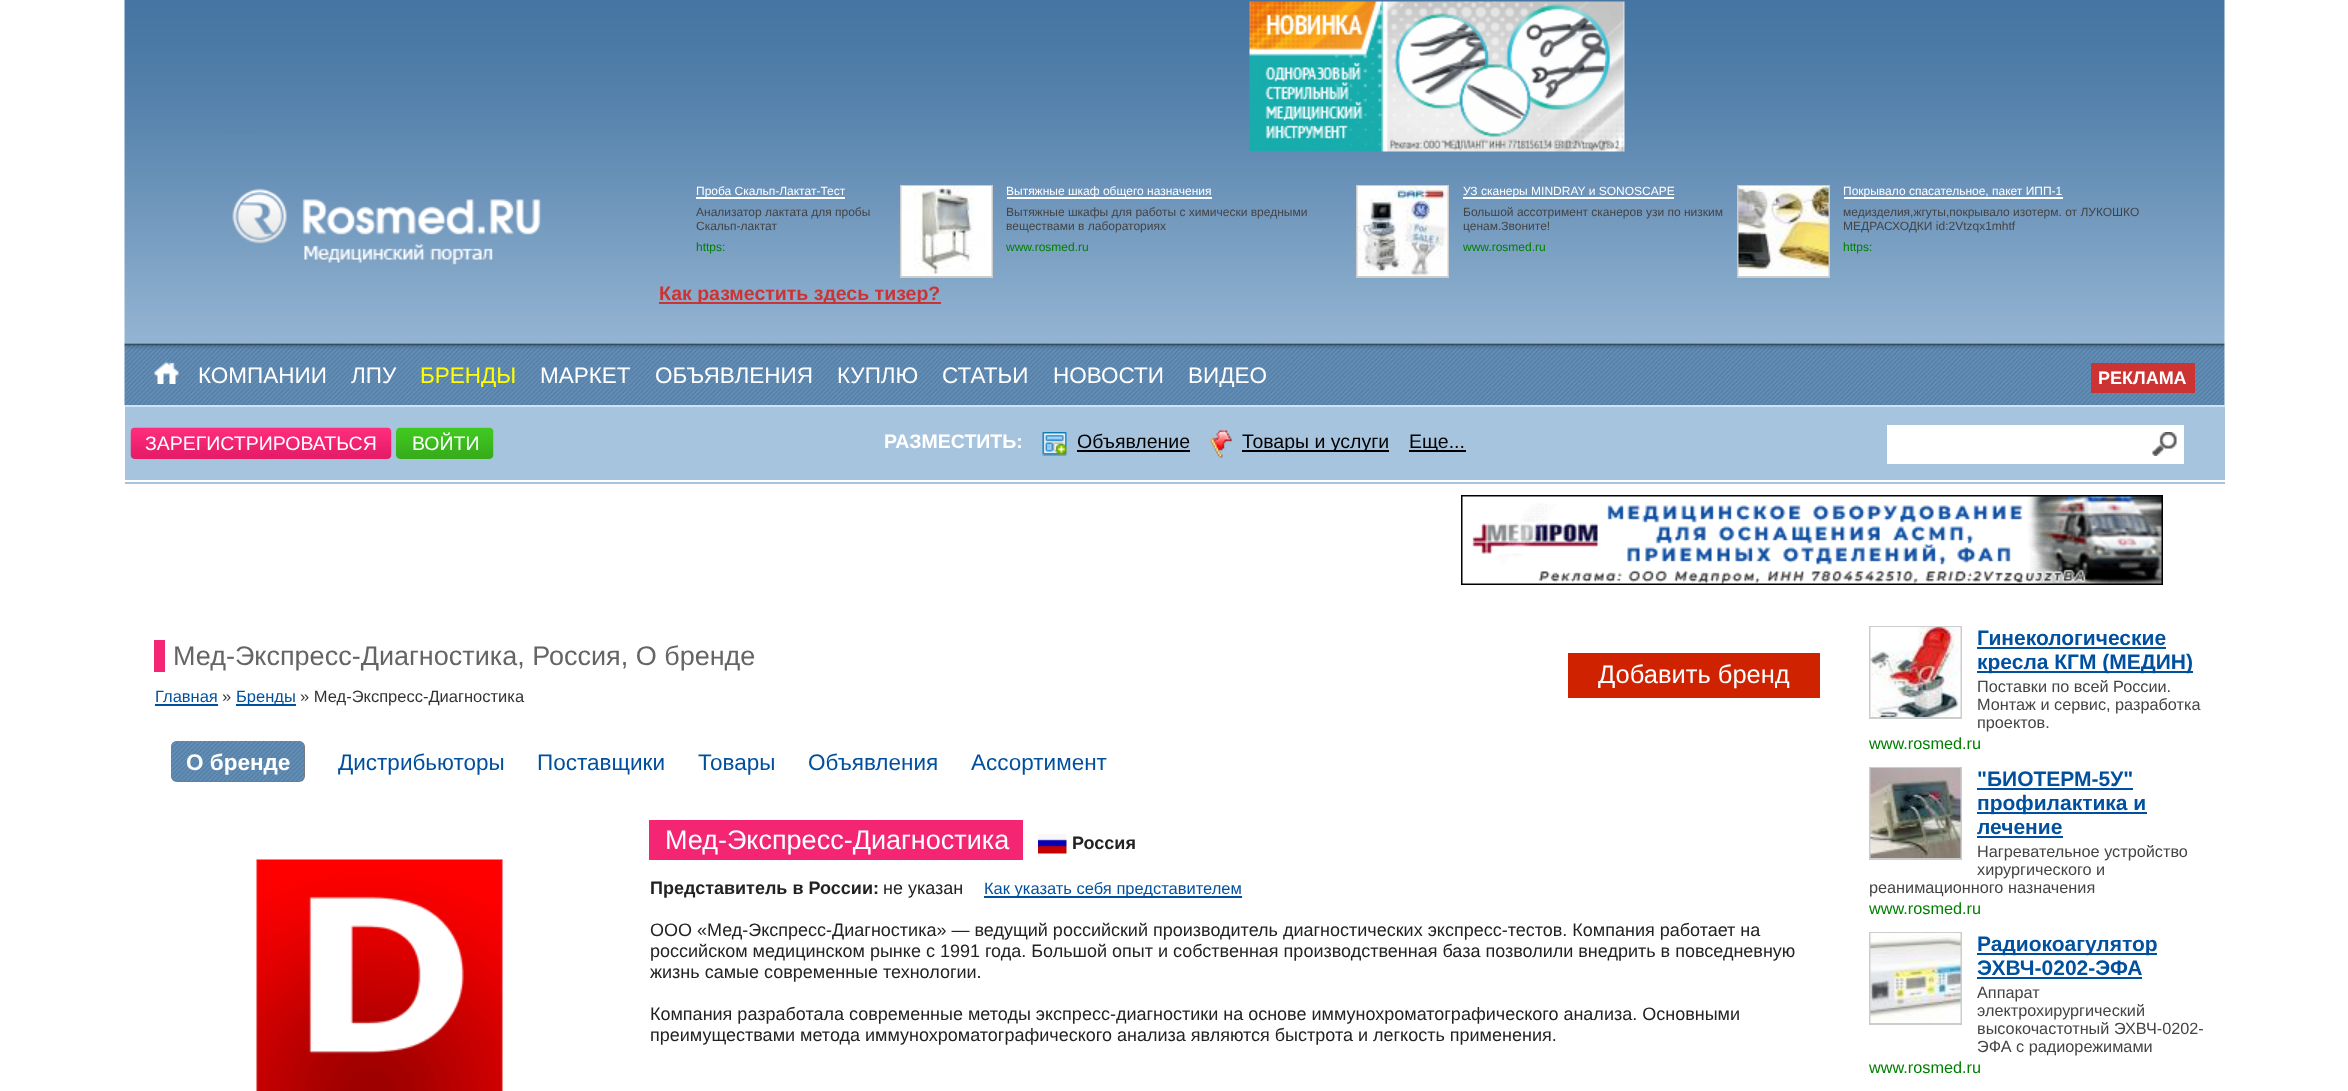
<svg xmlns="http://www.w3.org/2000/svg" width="2348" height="1091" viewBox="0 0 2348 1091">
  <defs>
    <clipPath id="clip1"><path d="M147 362h2078v25H147z"/></clipPath>
  </defs>
  <rect width="100%" height="100%" fill="#fff"/>
  <image x="124" y="0" width="2101" height="344" href="img/1.png"/>
  <image x="1249" y="1" width="376" height="151" href="img/2.png"/>
  <image x="232" y="188" width="309" height="77" href="img/3.png"/>
  <path d="M696 197h149v2H696z" fill="#fff"/>
  <path d="M901 186h91v91H901z" fill="none" stroke="#ccc" stroke-width="2"/>
  <image x="901" y="186" width="91" height="90" href="img/4.png"/>
  <path d="M1007 197h205v2H1007z" fill="#fff"/>
  <path d="M1357 186h91v91H1357z" fill="none" stroke="#ccc" stroke-width="2"/>
  <image x="1357" y="186" width="91" height="90" href="img/5.png"/>
  <path d="M1463 197h211v2H1463z" fill="#fff"/>
  <path d="M1738 186h91v91H1738z" fill="none" stroke="#ccc" stroke-width="2"/>
  <image x="1738" y="186" width="91" height="90" href="img/6.png"/>
  <path d="M1844 197h219v2H1844z" fill="#fff"/>
  <path d="M659 302h282v2H659z" fill="#c33"/>
  <image x="124" y="343" width="2101" height="62" href="img/7.png"/>
  <image x="154" y="361" width="25" height="23" href="img/8.png"/>
  <path d="M2091 363h104v30H2091z" fill="#c33"/>
  <path d="M125 407h2100v73H125z" fill="#a7c4de"/>
  <path d="M125 405h2100v2H125z" fill="#d0e3f4"/>
  <image x="130" y="427" width="262" height="32" href="img/9.png"/>
  <image x="396" y="427" width="98" height="32" href="img/10.png"/>
  <image x="1042" y="432" width="25" height="24" href="img/11.png"/>
  <path d="M1077 450h113v2H1077z" fill="#000"/>
  <image x="1210" y="430" width="22" height="28" href="img/12.png"/>
  <path d="M1242 450h147v2H1242z" fill="#000"/>
  <path d="M1409 450h57v2H1409z" fill="#000"/>
  <path d="M1887 425h297v39H1887z" fill="#fff"/>
  <image x="2152" y="432" width="25" height="24" href="img/13.png"/>
  <path d="M125 482h2100v2H125z" fill="#a7c4de"/>
  <image x="1461" y="495" width="702" height="90" href="img/14.png"/>
  <path d="M154 640h11v32H154z" fill="#f42674"/>
  <path d="M1568 653h252v45H1568z" fill="#cf2200"/>
  <path d="M155 704h63v2H155z" fill="#00509f"/>
  <path d="M236 704h60v2H236z" fill="#00509f"/>
  <rect x="171" y="741" width="134" height="41" rx="6" fill="#777"/>
  <image x="171" y="741" width="134" height="41" href="img/15.png"/>
  <image x="256" y="859" width="247" height="232" href="img/16.png"/>
  <path d="M649 820h374v40H649z" fill="#f42674"/>
  <image x="1038" y="834" width="29" height="20" href="img/17.png"/>
  <path d="M984 896h258v2H984z" fill="#00509f"/>
  <path d="M1870 627h91v91H1870z" fill="none" stroke="#ccc" stroke-width="2"/>
  <image x="1870" y="627" width="91" height="90" href="img/18.png"/>
  <path d="M1977 647h189v2H1977z" fill="#00509f"/>
  <path d="M1977 671h216v2H1977z" fill="#00509f"/>
  <path d="M1870 768h91v91H1870z" fill="none" stroke="#ccc" stroke-width="2"/>
  <image x="1870" y="768" width="91" height="90" href="img/19.png"/>
  <path d="M1977 788h156v2H1977z" fill="#00509f"/>
  <path d="M1977 812h170v2H1977z" fill="#00509f"/>
  <path d="M1977 836h86v2H1977z" fill="#00509f"/>
  <path d="M1870 933h91v91H1870z" fill="none" stroke="#ccc" stroke-width="2"/>
  <image x="1870" y="933" width="91" height="90" href="img/20.png"/>
  <path d="M1977 953h180v2H1977z" fill="#00509f"/>
  <path d="M1977 977h165v2H1977z" fill="#00509f"/>
  <text x="696" y="195" font-family="Liberation Sans" font-size="12" fill="#fff">Проба Скальп-Лактат-Тест</text>
  <g font-family="Liberation Sans" font-size="12" fill="#444">
    <text x="696" y="216">Анализатор лактата для пробы</text>
    <text x="696" y="230">Скальп-лактат</text>
  </g>
  <text x="696" y="251" font-family="Liberation Sans" font-size="12" fill="#008000">https:</text>
  <text x="1006" y="195" font-family="Liberation Sans" font-size="12" fill="#fff">Вытяжные шкаф общего назначения</text>
  <g font-family="Liberation Sans" font-size="12" fill="#444">
    <text x="1006" y="216">Вытяжные шкафы для работы с химически вредными</text>
    <text x="1006" y="230">веществами в лабораториях</text>
  </g>
  <text x="1006" y="251" font-family="Liberation Sans" font-size="12" fill="#008000">www.rosmed.ru</text>
  <text x="1463" y="195" font-family="Liberation Sans" font-size="12" fill="#fff">УЗ сканеры MINDRAY и SONOSCAPE</text>
  <g font-family="Liberation Sans" font-size="12" fill="#444">
    <text x="1463" y="216">Большой ассотримент сканеров узи по низким</text>
    <text x="1463" y="230">ценам.Звоните!</text>
  </g>
  <text x="1463" y="251" font-family="Liberation Sans" font-size="12" fill="#008000">www.rosmed.ru</text>
  <text x="1843" y="195" font-family="Liberation Sans" font-size="12" fill="#fff">Покрывало спасательное, пакет ИПП-1</text>
  <g font-family="Liberation Sans" font-size="12" fill="#444">
    <text x="1843" y="216">медизделия,жгуты,покрывало изотерм. от ЛУКОШКО</text>
    <text x="1843" y="230">МЕДРАСХОДКИ id:2Vtzqx1mhtf</text>
  </g>
  <text x="1843" y="251" font-family="Liberation Sans" font-size="12" fill="#008000">https:</text>
  <text x="659" y="300" font-family="Liberation Sans" font-size="19.5" font-weight="bold" fill="#c33">Как разместить здесь тизер?</text>
  <g font-family="Liberation Sans" font-size="22.5" fill="#fff">
    <text x="198" y="383">КОМПАНИИ</text>
    <text x="351" y="383">ЛПУ</text>
  </g>
  <g clip-path="url(#clip1)">
    <text x="420" y="383" font-family="Liberation Sans" font-size="22.5" fill="#ff0">БРЕНДЫ</text>
  </g>
  <g font-family="Liberation Sans" font-size="22.5" fill="#fff">
    <text x="540" y="383">МАРКЕТ</text>
    <text x="655" y="383">ОБЪЯВЛЕНИЯ</text>
    <text x="837" y="383">КУПЛЮ</text>
    <text x="942" y="383">СТАТЬИ</text>
    <text x="1053" y="383">НОВОСТИ</text>
  </g>
  <g clip-path="url(#clip1)">
    <text x="1188" y="383" font-family="Liberation Sans" font-size="22.5" fill="#fff">ВИДЕО</text>
  </g>
  <text x="2098" y="384" font-family="Liberation Sans" font-size="18" font-weight="bold" fill="#fff">РЕКЛАМА</text>
  <g font-family="Liberation Sans" font-size="19.5" fill="#fff">
    <text x="145" y="450">ЗАРЕГИСТРИРОВАТЬСЯ</text>
    <text x="412" y="450">ВОЙТИ</text>
  </g>
  <text x="884" y="448" font-family="Liberation Sans" font-size="19.5" font-weight="bold" fill="#fff">РАЗМЕСТИТЬ:</text>
  <g font-family="Liberation Sans" font-size="19.5" fill="#000">
    <text x="1077" y="448">Объявление</text>
    <text x="1242" y="448">Товары и услуги</text>
    <text x="1409" y="448">Еще...</text>
  </g>
  <text x="173" y="665" font-family="Liberation Sans" font-size="27" fill="#656565">Мед-Экспресс-Диагностика, Россия, О бренде</text>
  <text x="1598" y="683" font-family="Liberation Sans" font-size="25.5" fill="#fff">Добавить бренд</text>
  <text x="155" y="702" font-family="Liberation Sans" font-size="16.5" fill="#00509f">Главная</text>
  <text x="222" y="702" font-family="Liberation Sans" font-size="16.5" fill="#333">»</text>
  <text x="236" y="702" font-family="Liberation Sans" font-size="16.5" fill="#00509f">Бренды</text>
  <text x="300" y="702" font-family="Liberation Sans" font-size="16.5" fill="#333">» Мед-Экспресс-Диагностика</text>
  <text x="186" y="770" font-family="Liberation Sans" font-size="22.5" font-weight="bold" fill="#fff">О бренде</text>
  <g font-family="Liberation Sans" font-size="22.5" fill="#00509f">
    <text x="338" y="770">Дистрибьюторы</text>
    <text x="537" y="770">Поставщики</text>
    <text x="698" y="770">Товары</text>
    <text x="808" y="770">Объявления</text>
    <text x="971" y="770">Ассортимент</text>
  </g>
  <text x="665" y="849" font-family="Liberation Sans" font-size="27" fill="#fff">Мед-Экспресс-Диагностика</text>
  <g font-family="Liberation Sans" font-size="18" font-weight="bold" fill="#222">
    <text x="1072" y="849">Россия</text>
    <text x="650" y="894">Представитель в России:</text>
  </g>
  <text x="883" y="894" font-family="Liberation Sans" font-size="18" fill="#222">не указан</text>
  <text x="984" y="894" font-family="Liberation Sans" font-size="16.5" fill="#00509f">Как указать себя представителем</text>
  <g font-family="Liberation Sans" font-size="18" fill="#222">
    <text x="650" y="936">ООО «Мед-Экспресс-Диагностика» — ведущий российский производитель диагностических экспресс-тестов. Компания работает на</text>
    <text x="650" y="957">российском медицинском рынке с 1991 года. Большой опыт и собственная производственная база позволили внедрить в повседневную</text>
    <text x="650" y="978">жизнь самые современные технологии.</text>
    <text x="650" y="1020">Компания разработала современные методы экспресс-диагностики на основе иммунохроматографического анализа. Основными</text>
    <text x="650" y="1041">преимуществами метода иммунохроматографического анализа являются быстрота и легкость применения.</text>
  </g>
  <g font-family="Liberation Sans" font-size="21" font-weight="bold" fill="#00509f">
    <text x="1977" y="645">Гинекологические</text>
    <text x="1977" y="669">кресла КГМ (МЕДИН)</text>
  </g>
  <g font-family="Liberation Sans" font-size="16.25" fill="#444">
    <text x="1977" y="692">Поставки по всей России.</text>
    <text x="1977" y="710">Монтаж и сервис, разработка</text>
    <text x="1977" y="728">проектов.</text>
  </g>
  <text x="1869" y="749" font-family="Liberation Sans" font-size="16.25" fill="#008000">www.rosmed.ru</text>
  <g font-family="Liberation Sans" font-size="21" font-weight="bold" fill="#00509f">
    <text x="1977" y="786">"БИОТЕРМ-5У"</text>
    <text x="1977" y="810">профилактика и</text>
    <text x="1977" y="834">лечение</text>
  </g>
  <g font-family="Liberation Sans" font-size="16.25" fill="#444">
    <text x="1977" y="857">Нагревательное устройство</text>
    <text x="1977" y="875">хирургического и</text>
    <text x="1869" y="893">реанимационного назначения</text>
  </g>
  <text x="1869" y="914" font-family="Liberation Sans" font-size="16.25" fill="#008000">www.rosmed.ru</text>
  <g font-family="Liberation Sans" font-size="21" font-weight="bold" fill="#00509f">
    <text x="1977" y="951">Радиокоагулятор</text>
    <text x="1977" y="975">ЭХВЧ-0202-ЭФА</text>
  </g>
  <g font-family="Liberation Sans" font-size="16.25" fill="#444">
    <text x="1977" y="998">Аппарат</text>
    <text x="1977" y="1016">электрохирургический</text>
    <text x="1977" y="1034">высокочастотный ЭХВЧ-0202-</text>
    <text x="1977" y="1052">ЭФА с радиорежимами</text>
  </g>
  <text x="1869" y="1073" font-family="Liberation Sans" font-size="16.25" fill="#008000">www.rosmed.ru</text>
</svg>
